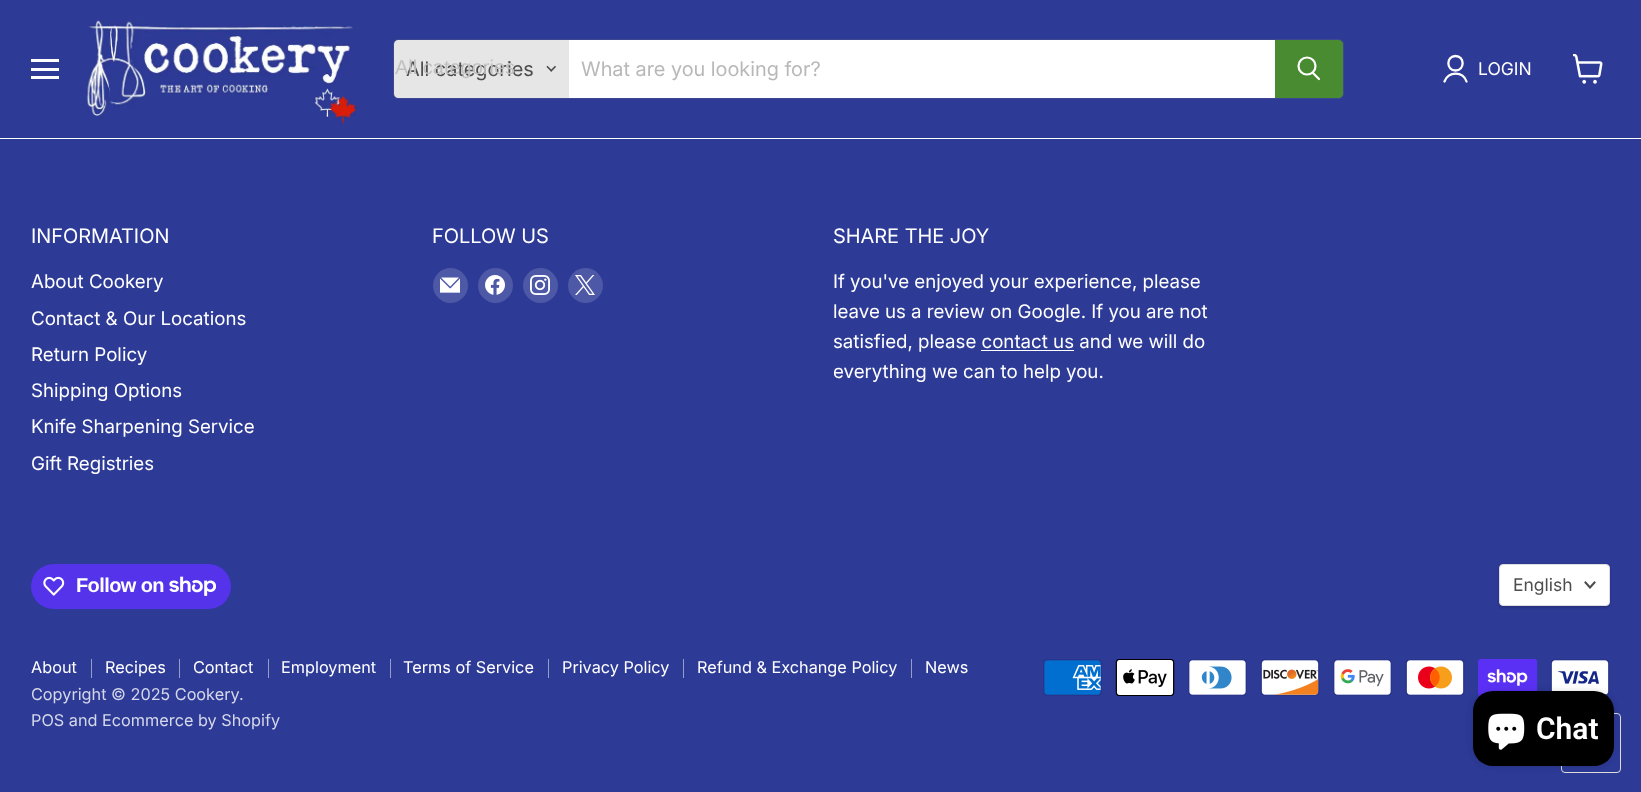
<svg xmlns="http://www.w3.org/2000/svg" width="1641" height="792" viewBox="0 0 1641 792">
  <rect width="100%" height="100%" fill="#fff"/>
  <path d="M0 0h1641v138H0z" fill="#2d3a96"/>
  <path d="M31 59h28v3H31z" fill="#fff"/>
  <path d="M31 68h28v3H31z" fill="#fff"/>
  <path d="M31 76h28v3H31z" fill="#fff"/>
  <image x="86" y="19" width="273" height="105" href="img/1.png"/>
  <rect x="393.5" y="39.5" width="950" height="59" rx="4.5" fill="none" stroke="#80808033"/>
  <path d="M398 40H569V98H398C396 98 394 96 394 94V44C394 42 396 40 398 40Z" fill="#e6e6e6"/>
  <image x="546" y="65" width="10" height="7" href="img/2.png"/>
  <path d="M569 40h706v58H569z" fill="#fff"/>
  <path d="M1275.5 40.5H1339C1341 40.5 1342.5 42 1342.5 44V94C1342.5 96 1341 97.5 1339 97.5H1275.5Z" fill="#488b31" stroke="#488b31"/>
  <path d="M1319 79L1313 73" fill="none" stroke="#fff" stroke-width="2.2" stroke-linecap="round"/>
  <circle cx="1307" cy="66" r="8.5" fill="none" stroke="#fff" stroke-width="2.2"/>
  <path d="M1455.5 70.5C1465 70.5 1465 56 1455.5 56C1446 56 1446 70.5 1455.5 70.5ZM1466.5 81.5C1463 71 1448.5 71 1444.5 81.5" fill="none" stroke="#fff" stroke-width="2.3" stroke-linecap="round" stroke-linejoin="round"/>
  <image x="1573" y="54" width="30" height="30" href="img/3.png"/>
  <path d="M0 139h1641v653H0z" fill="#2d3a96"/>
  <circle cx="450.5" cy="285.5" r="17.5" fill="#4d58a6"/>
  <image x="440" y="277" width="20" height="16" href="img/4.png"/>
  <circle cx="495.5" cy="285.5" r="17.5" fill="#4d58a6"/>
  <image x="485" y="275" width="20" height="20" href="img/5.png"/>
  <circle cx="540.5" cy="285.5" r="17.5" fill="#4d58a6"/>
  <image x="530" y="275" width="20" height="20" href="img/6.png"/>
  <circle cx="585.5" cy="285.5" r="17.5" fill="#4d58a6"/>
  <image x="575" y="275" width="20" height="20" href="img/7.png"/>
  <path d="M981 350h93v1H981z" fill="#fff"/>
  <rect x="31" y="564" width="200" height="45" rx="22.5" fill="#5433eb"/>
  <image x="43" y="576" width="22" height="20" href="img/8.png"/>
  <image x="169" y="576" width="47" height="20" href="img/9.png"/>
  <rect x="1499" y="565" width="111" height="43" rx="4" fill="#00000026" filter="blur(1px)"/>
  <rect x="1499.5" y="564.5" width="110" height="41" rx="3.5" fill="#fff" stroke="#ddd"/>
  <path d="M1590 587.5L1594.5 582.5M1590 587.5L1585.5 582.5" fill="none" stroke="#4d4d4d" stroke-width="2" stroke-linecap="square"/>
  <path d="M91 659h1v19H91z" fill="#969dcb"/>
  <path d="M179 659h1v19H179z" fill="#969dcb"/>
  <path d="M268 659h1v19H268z" fill="#969dcb"/>
  <path d="M390 659h1v19H390z" fill="#969dcb"/>
  <path d="M548 659h1v19H548z" fill="#969dcb"/>
  <path d="M683 659h1v19H683z" fill="#969dcb"/>
  <path d="M911 659h1v19H911z" fill="#969dcb"/>
  <image x="1043" y="659" width="59" height="37" href="img/10.png"/>
  <image x="1115" y="659" width="60" height="37" href="img/11.png"/>
  <image x="1188" y="659" width="59" height="37" href="img/12.png"/>
  <image x="1260" y="659" width="60" height="37" href="img/13.png"/>
  <image x="1333" y="659" width="59" height="37" href="img/14.png"/>
  <image x="1405" y="659" width="60" height="37" href="img/15.png"/>
  <image x="1478" y="659" width="60" height="37" href="img/16.png"/>
  <image x="1550" y="659" width="60" height="37" href="img/17.png"/>
  <rect x="1561.5" y="713.5" width="59" height="59" rx="3.5" fill="none" stroke="#ddd"/>
  <rect x="1473" y="691" width="141" height="75" rx="20" fill="#00000026" filter="blur(3px)"/>
  <rect x="1473" y="691" width="141" height="75" rx="20" fill="#000"/>
  <image x="1488" y="713" width="37" height="37" href="img/18.png"/>
  <text x="406" y="76" font-family="'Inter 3'" font-size="20" fill="#4d4d4d">All categories</text>
  <text x="395" y="74" font-family="Liberation Sans" font-size="20" fill="#c0c0c0">All categories</text>
  <text x="581" y="76" font-family="'Inter 3'" font-size="20" fill="#b8b8b8">What are you looking for?</text>
  <text x="1478" y="75" font-family="'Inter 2'" font-size="17.5" fill="#fff">LOGIN</text>
  <text x="31" y="243" font-family="'Inter 3'" font-size="20" fill="#fff">INFORMATION</text>
  <g font-family="Inter" font-size="18.75" fill="#fff">
    <text x="31" y="288">About Cookery</text>
    <text x="31" y="325">Contact &amp; Our Locations</text>
    <text x="31" y="361">Return Policy</text>
    <text x="31" y="397">Shipping Options</text>
    <text x="31" y="433">Knife Sharpening Service</text>
    <text x="31" y="470">Gift Registries</text>
  </g>
  <g font-family="'Inter 3'" font-size="20" fill="#fff">
    <text x="432" y="243">FOLLOW US</text>
    <text x="833" y="243">SHARE THE JOY</text>
  </g>
  <g font-family="Inter" font-size="18.75" fill="#fff">
    <text x="833" y="288">If you've enjoyed your experience, please</text>
    <text x="833" y="318">leave us a review on Google. If you are not</text>
    <text x="833" y="348">satisfied, please contact us and we will do</text>
    <text x="833" y="378">everything we can to help you.</text>
  </g>
  <text x="76" y="592" font-family="Liberation Sans" font-size="20" font-weight="bold" letter-spacing="-0.6" fill="#fff">Follow on</text>
  <text x="1513" y="591" font-family="'Inter 2'" font-size="17.5" fill="#4d4d4d">English</text>
  <g font-family="'Inter 2'" font-size="16.25" fill="#fff">
    <text x="31" y="673">About</text>
    <text x="105" y="673">Recipes</text>
    <text x="193" y="673">Contact</text>
    <text x="281" y="673">Employment</text>
    <text x="403" y="673">Terms of Service</text>
    <text x="562" y="673">Privacy Policy</text>
    <text x="697" y="673">Refund &amp; Exchange Policy</text>
    <text x="925" y="673">News</text>
  </g>
  <g font-family="'Inter 2'" font-size="16.25" fill="#d5d8ea">
    <text x="31" y="700">Copyright © 2025 Cookery.</text>
    <text x="31" y="726">POS and Ecommerce by Shopify</text>
  </g>
  <text x="1536" y="739" font-family="Roboto" font-size="30" font-weight="600" fill="#fff">Chat</text>
</svg>
